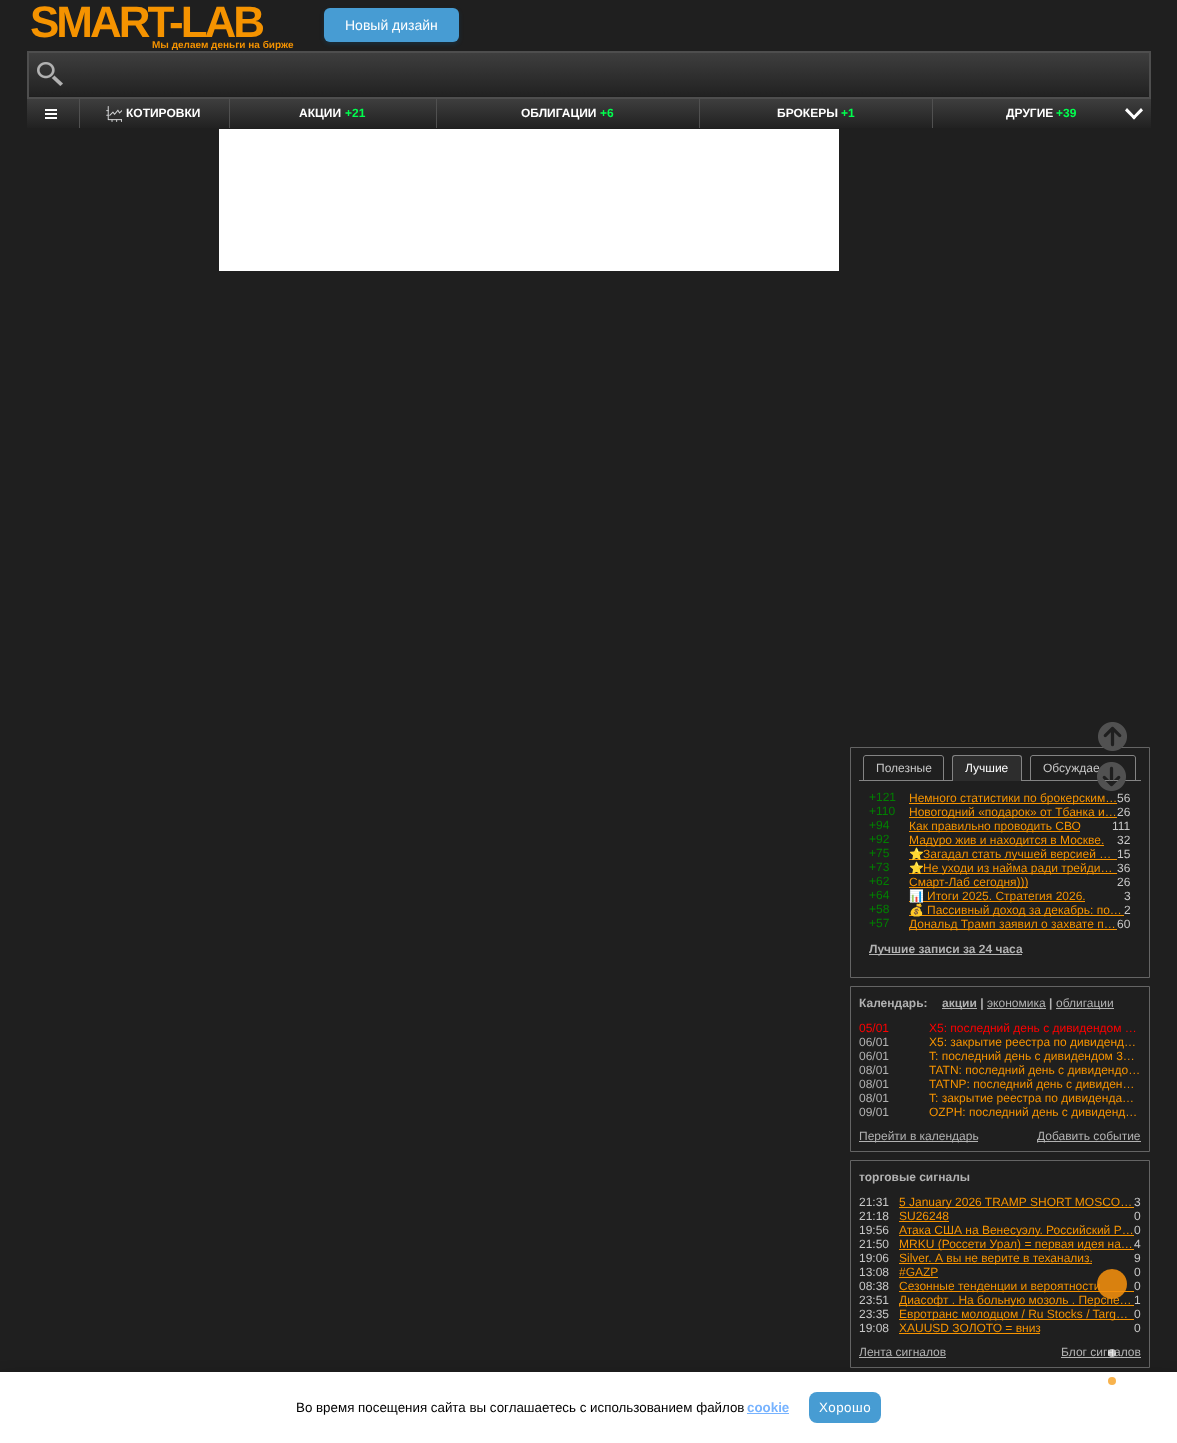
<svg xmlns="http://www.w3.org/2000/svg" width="1177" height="1443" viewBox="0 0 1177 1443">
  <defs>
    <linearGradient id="g1" gradientUnits="userSpaceOnUse" x1="589" y1="53" x2="589" y2="97"><stop offset="0" stop-color="#3e3e3e"/><stop offset="1" stop-color="#212121"/></linearGradient>
    <linearGradient id="g2" gradientUnits="userSpaceOnUse" x1="589" y1="99" x2="589" y2="128"><stop offset="0" stop-color="#3e3e3e"/><stop offset="1" stop-color="#212121"/></linearGradient>
    <clipPath id="clip1"><path d="M909 847h208v14H909z"/></clipPath>
    <clipPath id="clip2"><path d="M909 861h208v14H909z"/></clipPath>
    <clipPath id="clip3"><path d="M909 889h215v14H909z"/></clipPath>
    <clipPath id="clip4"><path d="M909 903h215v14H909z"/></clipPath>
    <clipPath id="clip5"><path d="M909 917h208v14H909z"/></clipPath>
    <clipPath id="clip6"><path d="M899 1293h235v14H899z"/></clipPath>
  </defs>
  <rect width="100%" height="100%" fill="#1f1f1f"/>
  <rect x="324" y="10" width="135" height="34" rx="6" fill="#0b54834d" filter="blur(2px)"/>
  <rect x="324" y="8" width="135" height="34" rx="6" fill="#479cd3"/>
  <path d="M850.5 1160.5h299v207H850.5z" fill="none" stroke="#646464"/>
  <path d="M859 1357h87v1H859z" fill="#b2b2b2"/>
  <path d="M1061 1357h80v1H1061z" fill="#b2b2b2"/>
  <path d="M0 1377h1177v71H0z" fill="#00000059" filter="blur(7.5px)"/>
  <path d="M0 1372h1177v71H0z" fill="#fff"/>
  <circle cx="1112" cy="1381" r="4" fill="#f8b34d"/>
  <path d="M29 53h1120v43H29z" fill="url(#g1)"/>
  <path d="M28 52h1122v46H28z" fill="none" stroke="#4e4e4e" stroke-width="2"/>
  <image x="37" y="62" width="26" height="24" href="img/1.png"/>
  <path d="M27 99h1124v29H27z" fill="url(#g2)"/>
  <image x="45" y="109" width="12" height="10" href="img/2.png"/>
  <path d="M79 99h1v29H79z" fill="#505050"/>
  <image x="106" y="106" width="16" height="16" href="img/3.png"/>
  <path d="M229 99h1v29H229z" fill="#505050"/>
  <path d="M436 99h1v29H436z" fill="#505050"/>
  <path d="M699 99h1v29H699z" fill="#505050"/>
  <path d="M932 99h1v29H932z" fill="#505050"/>
  <path d="M1141 108L1143 110.5L1134 119.5L1132 117.5Z" fill="#fff"/>
  <path d="M1127 108L1136 117.5L1134 119.5L1125 110.5Z" fill="#fff"/>
  <path d="M219 129h620v142H219z" fill="#fff"/>
  <path d="M850.5 747.5h299v230H850.5z" fill="none" stroke="#646464"/>
  <path d="M859 780h282v1H859z" fill="#848484"/>
  <path d="M866 755.5H941C942.5 755.5 943.5 756.5 943.5 758V780.5H863.5V758C863.5 756.5 864.5 755.5 866 755.5Z" fill="none" stroke="#848484"/>
  <path d="M955 755H1019C1020.5 755 1022 756.5 1022 758V781H952V758C952 756.5 953.5 755 955 755Z" fill="#2d2d2d"/>
  <path d="M955 755H1019C1021 755 1022 756 1022 758V781H952V758C952 756 953 755 955 755ZM955 756H1019C1020 756 1021 757 1021 758V781H953V758C953 757 954 756 955 756Z" fill="#848484" fill-rule="evenodd"/>
  <path d="M1033 755.5H1133C1134.5 755.5 1135.5 756.5 1135.5 758V780.5H1030.5V758C1030.5 756.5 1031.5 755.5 1033 755.5Z" fill="none" stroke="#848484"/>
  <path d="M909 803h208v1H909z" fill="#f59300"/>
  <path d="M909 817h208v1H909z" fill="#f59300"/>
  <path d="M909 831h171v1H909z" fill="#f59300"/>
  <path d="M909 845h195v1H909z" fill="#f59300"/>
  <path d="M909 859h208v1H909z" fill="#f59300"/>
  <path d="M909 873h208v1H909z" fill="#f59300"/>
  <path d="M909 887h119v1H909z" fill="#f59300"/>
  <path d="M909 901h176v1H909z" fill="#f59300"/>
  <path d="M909 915h215v1H909z" fill="#f59300"/>
  <path d="M909 929h208v1H909z" fill="#f59300"/>
  <path d="M869 954h153v1H869z" fill="#b2b2b2"/>
  <path d="M850.5 986.5h299v165H850.5z" fill="none" stroke="#646464"/>
  <path d="M942 1008h35v1H942z" fill="#b2b2b2"/>
  <path d="M987 1008h59v1H987z" fill="#b2b2b2"/>
  <path d="M1056 1008h58v1H1056z" fill="#b2b2b2"/>
  <path d="M859 1141h119v1H859z" fill="#b2b2b2"/>
  <path d="M1037 1141h104v1H1037z" fill="#b2b2b2"/>
  <path d="M899 1207h235v1H899z" fill="#f59300"/>
  <path d="M899 1221h50v1H899z" fill="#f59300"/>
  <path d="M899 1235h235v1H899z" fill="#f59300"/>
  <path d="M899 1249h235v1H899z" fill="#f59300"/>
  <path d="M899 1263h193v1H899z" fill="#f59300"/>
  <path d="M899 1277h39v1H899z" fill="#f59300"/>
  <path d="M899 1291h235v1H899z" fill="#f59300"/>
  <path d="M899 1305h235v1H899z" fill="#f59300"/>
  <path d="M899 1319h235v1H899z" fill="#f59300"/>
  <path d="M899 1333h141v1H899z" fill="#f59300"/>
  <image x="1098" y="722" width="29" height="29" href="img/4.png"/>
  <path d="M747 1413h42v1H747z" fill="#77b3ff"/>
  <rect x="809" y="1392" width="72" height="31" rx="8" fill="#479cd3"/>
  <text x="30" y="37" font-family="Liberation Sans" font-size="44" font-weight="bold" letter-spacing="-3" fill="#f59300">SMART-LAB</text>
  <text x="152" y="48" font-family="Liberation Sans" font-size="10" font-weight="bold" fill="#f59300">Мы делаем деньги на бирже</text>
  <text x="345" y="30" font-family="Liberation Sans" font-size="14" fill="#fff">Новый дизайн</text>
  <g font-family="Liberation Sans" font-size="12" font-weight="bold" fill="#fff">
    <text x="126" y="117">КОТИРОВКИ</text>
    <text x="299" y="117">АКЦИИ</text>
  </g>
  <text x="345" y="117" font-family="Liberation Sans" font-size="12" font-weight="bold" fill="#00ff4e">+21</text>
  <text x="521" y="117" font-family="Liberation Sans" font-size="12" font-weight="bold" fill="#fff">ОБЛИГАЦИИ</text>
  <text x="600" y="117" font-family="Liberation Sans" font-size="12" font-weight="bold" fill="#00ff4e">+6</text>
  <text x="777" y="117" font-family="Liberation Sans" font-size="12" font-weight="bold" fill="#fff">БРОКЕРЫ</text>
  <text x="841" y="117" font-family="Liberation Sans" font-size="12" font-weight="bold" fill="#00ff4e">+1</text>
  <text x="1006" y="117" font-family="Liberation Sans" font-size="12" font-weight="bold" fill="#fff">ДРУГИЕ</text>
  <text x="1056" y="117" font-family="Liberation Sans" font-size="12" font-weight="bold" fill="#00ff4e">+39</text>
  <text x="876" y="772" font-family="Liberation Sans" font-size="12" fill="#c8c8c8">Полезные</text>
  <text x="965" y="772" font-family="Liberation Sans" font-size="12" fill="#fff">Лучшие</text>
  <text x="1043" y="772" font-family="Liberation Sans" font-size="12" fill="#c8c8c8">Обсуждае</text>
  <text x="869" y="801" font-family="Liberation Sans" font-size="12" fill="#008000">+121</text>
  <text x="909" y="802" font-family="Liberation Sans" font-size="12" fill="#f59300">Немного статистики по брокерским…</text>
  <text x="1117" y="802" font-family="Liberation Sans" font-size="12" fill="#c8c8c8">56</text>
  <text x="869" y="815" font-family="Liberation Sans" font-size="12" fill="#008000">+110</text>
  <text x="909" y="816" font-family="Liberation Sans" font-size="12" fill="#f59300">Новогодний «подарок» от Тбанка и…</text>
  <text x="1117" y="816" font-family="Liberation Sans" font-size="12" fill="#c8c8c8">26</text>
  <text x="869" y="829" font-family="Liberation Sans" font-size="12" fill="#008000">+94</text>
  <text x="909" y="830" font-family="Liberation Sans" font-size="12" fill="#f59300">Как правильно проводить СВО</text>
  <text x="1112" y="830" font-family="Liberation Sans" font-size="12" fill="#c8c8c8">111</text>
  <text x="869" y="843" font-family="Liberation Sans" font-size="12" fill="#008000">+92</text>
  <text x="909" y="844" font-family="Liberation Sans" font-size="12" fill="#f59300">Мадуро жив и находится в Москве.</text>
  <text x="1117" y="844" font-family="Liberation Sans" font-size="12" fill="#c8c8c8">32</text>
  <text x="869" y="857" font-family="Liberation Sans" font-size="12" fill="#008000">+75</text>
  <g clip-path="url(#clip1)">
    <text x="909" y="858" font-family="Noto Color Emoji" font-size="12" fill="#f59300">⭐️</text>
  </g>
  <text x="923" y="858" font-family="Liberation Sans" font-size="12" fill="#f59300">Загадал стать лучшей версией …</text>
  <text x="1117" y="858" font-family="Liberation Sans" font-size="12" fill="#c8c8c8">15</text>
  <text x="869" y="871" font-family="Liberation Sans" font-size="12" fill="#008000">+73</text>
  <g clip-path="url(#clip2)">
    <text x="909" y="872" font-family="Noto Color Emoji" font-size="12" fill="#f59300">⭐️</text>
  </g>
  <text x="923" y="872" font-family="Liberation Sans" font-size="12" fill="#f59300">Не уходи из найма ради трейди…</text>
  <text x="1117" y="872" font-family="Liberation Sans" font-size="12" fill="#c8c8c8">36</text>
  <text x="869" y="885" font-family="Liberation Sans" font-size="12" fill="#008000">+62</text>
  <text x="909" y="886" font-family="Liberation Sans" font-size="12" fill="#f59300">Смарт-Лаб сегодня)))</text>
  <text x="1117" y="886" font-family="Liberation Sans" font-size="12" fill="#c8c8c8">26</text>
  <text x="869" y="899" font-family="Liberation Sans" font-size="12" fill="#008000">+64</text>
  <g clip-path="url(#clip3)">
    <text x="909" y="900" font-family="Noto Color Emoji" font-size="12" fill="#f59300">📊</text>
  </g>
  <text x="927" y="900" font-family="Liberation Sans" font-size="12" fill="#f59300">Итоги 2025. Стратегия 2026.</text>
  <text x="1124" y="900" font-family="Liberation Sans" font-size="12" fill="#c8c8c8">3</text>
  <text x="869" y="913" font-family="Liberation Sans" font-size="12" fill="#008000">+58</text>
  <g clip-path="url(#clip4)">
    <text x="909" y="914" font-family="Noto Color Emoji" font-size="12" fill="#f59300">💰</text>
  </g>
  <text x="927" y="914" font-family="Liberation Sans" font-size="12" fill="#f59300">Пассивный доход за декабрь: по…</text>
  <text x="1124" y="914" font-family="Liberation Sans" font-size="12" fill="#c8c8c8">2</text>
  <text x="869" y="927" font-family="Liberation Sans" font-size="12" fill="#008000">+57</text>
  <g clip-path="url(#clip5)">
    <text x="909" y="928" font-family="Liberation Sans" font-size="12" fill="#f59300">Дональд Трамп заявил о захвате п…</text>
  </g>
  <text x="1117" y="928" font-family="Liberation Sans" font-size="12" fill="#c8c8c8">60</text>
  <g font-family="Liberation Sans" font-size="12" font-weight="bold" fill="#b2b2b2">
    <text x="869" y="953">Лучшие записи за 24 часа</text>
    <text x="859" y="1007">Календарь:</text>
    <text x="942" y="1007">акции |</text>
  </g>
  <text x="987" y="1007" font-family="Liberation Sans" font-size="12" fill="#b2b2b2">экономика</text>
  <text x="1049" y="1007" font-family="Liberation Sans" font-size="12" font-weight="bold" fill="#b2b2b2">|</text>
  <text x="1056" y="1007" font-family="Liberation Sans" font-size="12" fill="#b2b2b2">облигации</text>
  <g font-family="Liberation Sans" font-size="12" fill="#f00">
    <text x="859" y="1032">05/01</text>
    <text x="929" y="1032">X5: последний день с дивидендом …</text>
  </g>
  <text x="859" y="1046" font-family="Liberation Sans" font-size="12" fill="#b2b2b2">06/01</text>
  <text x="929" y="1046" font-family="Liberation Sans" font-size="12" fill="#f59300">X5: закрытие реестра по дивиденд…</text>
  <text x="859" y="1060" font-family="Liberation Sans" font-size="12" fill="#b2b2b2">06/01</text>
  <text x="929" y="1060" font-family="Liberation Sans" font-size="12" fill="#f59300">T: последний день с дивидендом 3…</text>
  <text x="859" y="1074" font-family="Liberation Sans" font-size="12" fill="#b2b2b2">08/01</text>
  <text x="929" y="1074" font-family="Liberation Sans" font-size="12" fill="#f59300">TATN: последний день с дивидендо…</text>
  <text x="859" y="1088" font-family="Liberation Sans" font-size="12" fill="#b2b2b2">08/01</text>
  <text x="929" y="1088" font-family="Liberation Sans" font-size="12" fill="#f59300">TATNP: последний день с дивиден…</text>
  <text x="859" y="1102" font-family="Liberation Sans" font-size="12" fill="#b2b2b2">08/01</text>
  <text x="929" y="1102" font-family="Liberation Sans" font-size="12" fill="#f59300">T: закрытие реестра по дивиденда…</text>
  <text x="859" y="1116" font-family="Liberation Sans" font-size="12" fill="#b2b2b2">09/01</text>
  <text x="929" y="1116" font-family="Liberation Sans" font-size="12" fill="#f59300">OZPH: последний день с дивиденд…</text>
  <g font-family="Liberation Sans" font-size="12" fill="#b2b2b2">
    <text x="859" y="1140">Перейти в календарь</text>
    <text x="1037" y="1140">Добавить событие</text>
  </g>
  <text x="859" y="1181" font-family="Liberation Sans" font-size="12" font-weight="bold" fill="#b2b2b2">торговые сигналы</text>
  <text x="859" y="1206" font-family="Liberation Sans" font-size="12" fill="#c8c8c8">21:31</text>
  <text x="899" y="1206" font-family="Liberation Sans" font-size="12" fill="#f59300">5 January 2026 TRAMP SHORT MOSCO…</text>
  <g font-family="Liberation Sans" font-size="12" fill="#c8c8c8">
    <text x="1134" y="1206">3</text>
    <text x="859" y="1220">21:18</text>
  </g>
  <text x="899" y="1220" font-family="Liberation Sans" font-size="12" fill="#f59300">SU26248</text>
  <g font-family="Liberation Sans" font-size="12" fill="#c8c8c8">
    <text x="1134" y="1220">0</text>
    <text x="859" y="1234">19:56</text>
  </g>
  <text x="899" y="1234" font-family="Liberation Sans" font-size="12" fill="#f59300">Атака США на Венесуэлу. Российский Р…</text>
  <g font-family="Liberation Sans" font-size="12" fill="#c8c8c8">
    <text x="1134" y="1234">0</text>
    <text x="859" y="1248">21:50</text>
  </g>
  <text x="899" y="1248" font-family="Liberation Sans" font-size="12" fill="#f59300">MRKU (Россети Урал) = первая идея на…</text>
  <g font-family="Liberation Sans" font-size="12" fill="#c8c8c8">
    <text x="1134" y="1248">4</text>
    <text x="859" y="1262">19:06</text>
  </g>
  <text x="899" y="1262" font-family="Liberation Sans" font-size="12" fill="#f59300">Silver. А вы не верите в теханализ.</text>
  <g font-family="Liberation Sans" font-size="12" fill="#c8c8c8">
    <text x="1134" y="1262">9</text>
    <text x="859" y="1276">13:08</text>
  </g>
  <text x="899" y="1276" font-family="Liberation Sans" font-size="12" fill="#f59300">#GAZP</text>
  <g font-family="Liberation Sans" font-size="12" fill="#c8c8c8">
    <text x="1134" y="1276">0</text>
    <text x="859" y="1290">08:38</text>
  </g>
  <text x="899" y="1290" font-family="Liberation Sans" font-size="12" fill="#f59300">Сезонные тенденции и вероятности</text>
  <g font-family="Liberation Sans" font-size="12" fill="#c8c8c8">
    <text x="1134" y="1290">0</text>
    <text x="859" y="1304">23:51</text>
  </g>
  <g clip-path="url(#clip6)">
    <text x="899" y="1304" font-family="Liberation Sans" font-size="12" fill="#f59300">Диасофт . На больную мозоль . Перспе…</text>
  </g>
  <circle cx="1112" cy="1284" r="15" fill="#f5900dde"/>
  <g font-family="Liberation Sans" font-size="12" fill="#c8c8c8">
    <text x="1134" y="1304">1</text>
    <text x="859" y="1318">23:35</text>
  </g>
  <text x="899" y="1318" font-family="Liberation Sans" font-size="12" fill="#f59300">Евротранс молодцом / Ru Stocks / Targ…</text>
  <g font-family="Liberation Sans" font-size="12" fill="#c8c8c8">
    <text x="1134" y="1318">0</text>
    <text x="859" y="1332">19:08</text>
  </g>
  <text x="899" y="1332" font-family="Liberation Sans" font-size="12" fill="#f59300">XAUUSD ЗОЛОТО = вниз</text>
  <text x="1134" y="1332" font-family="Liberation Sans" font-size="12" fill="#c8c8c8">0</text>
  <g font-family="Liberation Sans" font-size="12" fill="#b2b2b2">
    <text x="859" y="1356">Лента сигналов</text>
    <text x="1061" y="1356">Блог сигналов</text>
  </g>
  <circle cx="1112" cy="1353" r="4" fill="#ffffffb3"/>
  <image x="1097" y="762" width="29" height="29" href="img/5.png"/>
  <text x="296" y="1412" font-family="Liberation Sans" font-size="13.35" fill="#000">Во время посещения сайта вы соглашаетесь с использованием файлов</text>
  <text x="747" y="1412" font-family="Liberation Sans" font-size="13.35" font-weight="bold" fill="#77b3ff">cookie</text>
  <text x="819" y="1412" font-family="Liberation Sans" font-size="13.35" letter-spacing="0.5" fill="#fff">Хорошо</text>
</svg>
